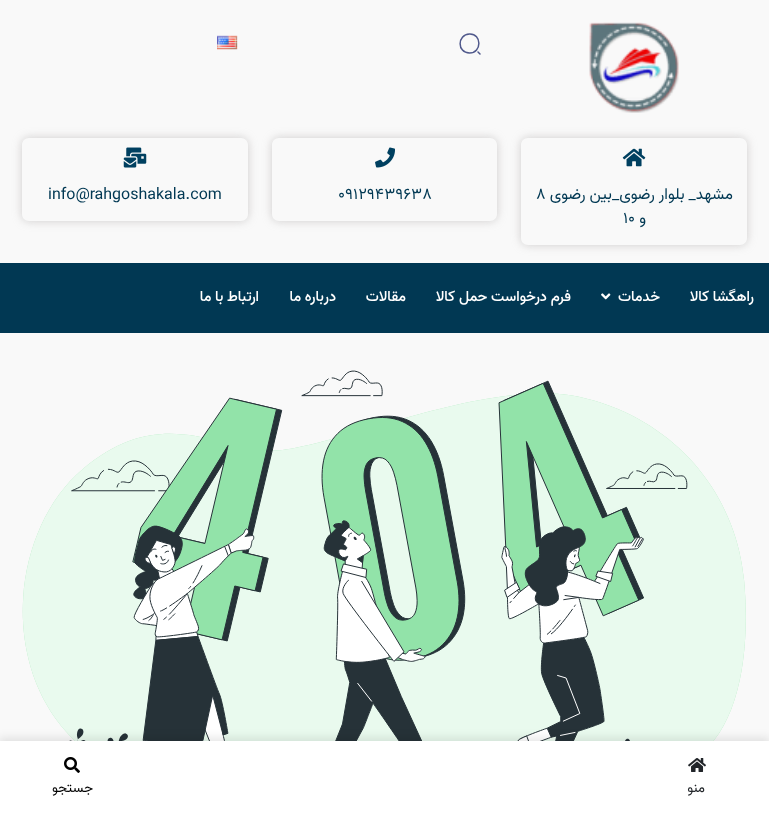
<svg xmlns="http://www.w3.org/2000/svg" width="769" height="815" viewBox="0 0 769 815">
  <defs>
    <clipPath id="clip1"><path d="M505 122H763V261H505ZM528 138H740C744 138 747 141 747 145V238C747 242 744 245 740 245H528C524 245 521 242 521 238V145C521 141 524 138 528 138Z" clip-rule="evenodd"/></clipPath>
    <clipPath id="clip2"><path d="M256 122H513V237H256ZM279 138H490C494 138 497 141 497 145V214C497 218 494 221 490 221H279C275 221 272 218 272 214V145C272 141 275 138 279 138Z" clip-rule="evenodd"/></clipPath>
    <clipPath id="clip3"><path d="M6 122H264V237H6ZM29 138H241C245 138 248 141 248 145V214C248 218 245 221 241 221H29C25 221 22 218 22 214V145C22 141 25 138 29 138Z" clip-rule="evenodd"/></clipPath>
  </defs>
  <rect width="100%" height="100%" fill="#f9f9f9"/>
  <image x="589" y="22" width="90" height="91" href="img/1.png"/>
  <path d="M480 54L478 52M469.5 53C482 53 482 33.5 469.5 34C457 34.5 457 53 469.5 53Z" fill="none" stroke="#50598c" stroke-width="1.5" stroke-linecap="round" stroke-linejoin="round"/>
  <image x="217" y="35" width="21" height="15" href="img/2.png"/>
  <g clip-path="url(#clip1)">
    <rect x="521" y="138" width="226" height="107" rx="7" fill="#a5a2a280" filter="blur(5px)"/>
  </g>
  <image x="622" y="148" width="24" height="19" href="img/3.png"/>
  <g clip-path="url(#clip2)">
    <rect x="272" y="138" width="225" height="83" rx="7" fill="#a5a2a280" filter="blur(5px)"/>
  </g>
  <image x="375" y="147" width="20" height="21" href="img/4.png"/>
  <g clip-path="url(#clip3)">
    <rect x="22" y="138" width="226" height="83" rx="7" fill="#a5a2a280" filter="blur(5px)"/>
  </g>
  <image x="123" y="147" width="24" height="21" href="img/5.png"/>
  <path d="M0 263h769v70H0z" fill="#013853"/>
  <image x="601" y="293" width="10" height="7" href="img/6.png"/>
  <image x="22" y="370" width="724" height="371" href="img/7.png"/>
  <path d="M-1 738h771v76H-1z" fill="#0000001a" filter="blur(5px)"/>
  <path d="M0 741h769v74H0z" fill="#fff"/>
  <image x="688" y="758" width="18" height="14" href="img/8.png"/>
  <image x="64" y="757" width="16" height="16" href="img/9.png"/>
  <text x="733" y="199" font-family="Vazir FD" font-size="16" direction="rtl" fill="#013853">مشهد_ بلوار رضوی_بین رضوی</text>
  <text x="536" y="199" font-family="Vazir FD" font-size="16" fill="#013853">8</text>
  <text x="646" y="223" font-family="Vazir FD" font-size="16" direction="rtl" fill="#013853">و</text>
  <g font-family="Vazir FD" font-size="16" fill="#013853">
    <text x="623" y="223">10</text>
    <text x="338" y="199">09129439638</text>
    <text x="48" y="199">info@rahgoshakala.com</text>
  </g>
  <g font-family="Vazir FD" font-size="15" font-weight="500" direction="rtl" fill="#fff">
    <text x="754" y="301">راهگشا کالا</text>
    <text x="660" y="301">خدمات</text>
    <text x="571" y="301">فرم درخواست حمل کالا</text>
    <text x="406" y="301">مقالات</text>
    <text x="336" y="301">درباره ما</text>
    <text x="259" y="301">ارتباط با ما</text>
  </g>
  <text x="705" y="792" font-family="Vazir FD" font-size="14" direction="rtl" fill="#212529">منو</text>
  <text x="93" y="792" font-family="Vazir FD" font-size="14" direction="rtl" fill="#000">جستجو</text>
</svg>
